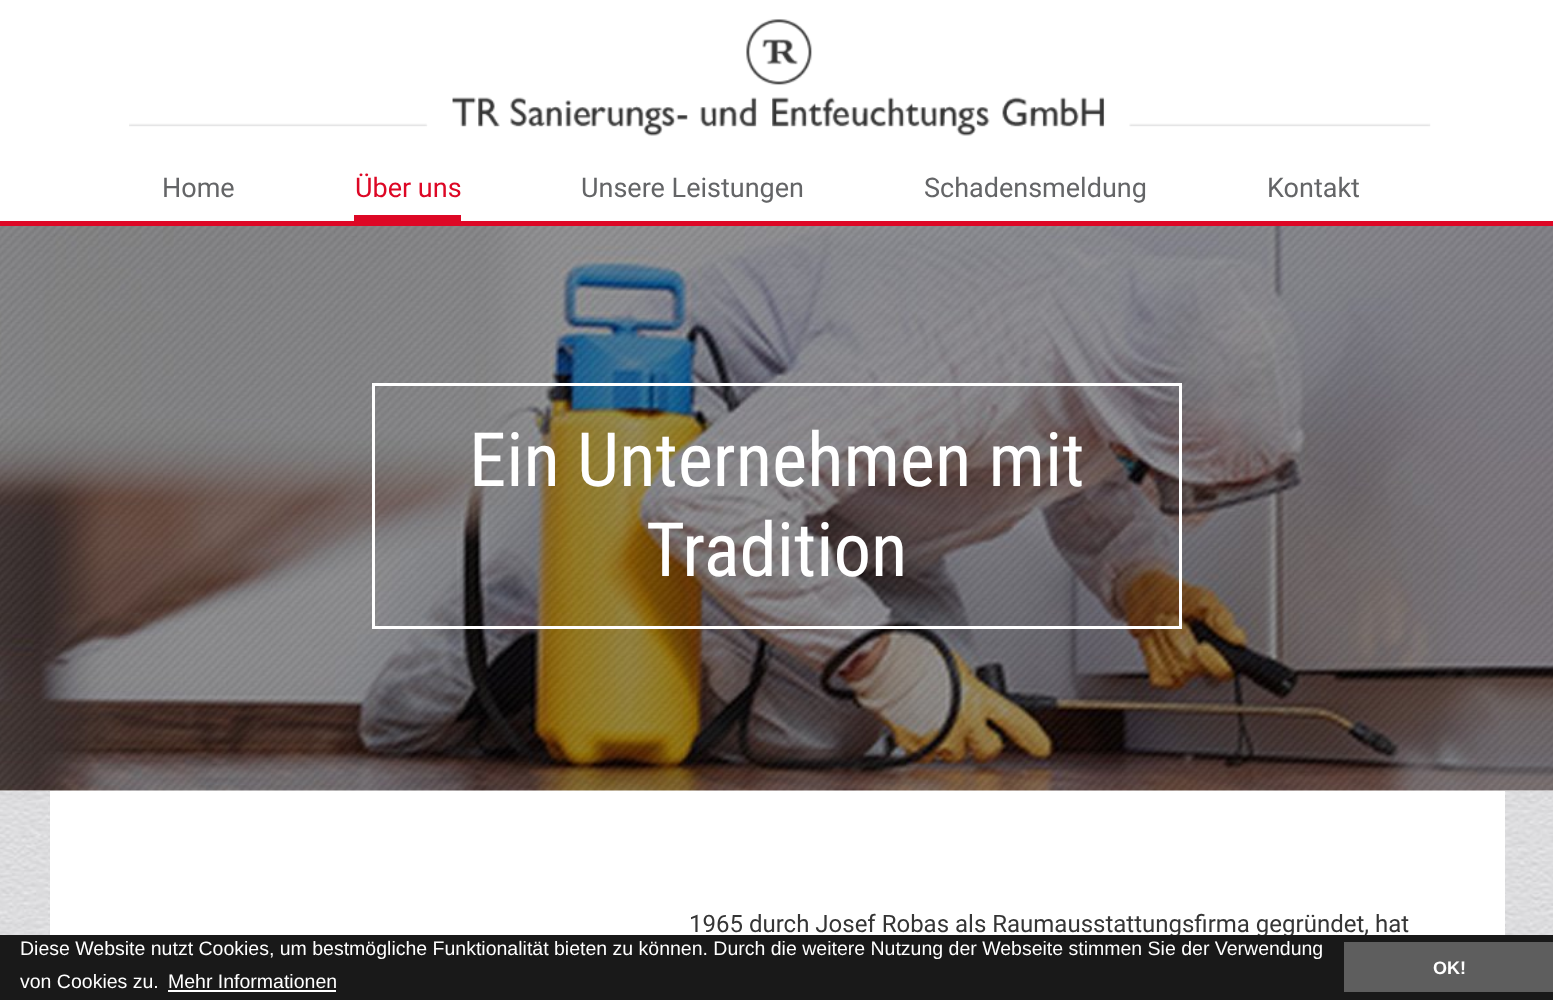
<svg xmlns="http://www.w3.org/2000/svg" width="1553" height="1000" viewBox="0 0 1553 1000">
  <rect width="100%" height="100%" fill="#fff"/>
  <image x="0" y="791" width="1553" height="144" href="img/1.png"/>
  <image x="129" y="19" width="1302" height="117" href="img/2.png"/>
  <path d="M354 215h107v6H354z" fill="#dd0725"/>
  <image x="0" y="226" width="1553" height="565" href="img/3.png"/>
  <path d="M0 221h1553v5H0z" fill="#dd0725"/>
  <path d="M373.5 384.5h807v243H373.5z" fill="none" stroke="#fff" stroke-width="3"/>
  <path d="M50 791h1455v144H50z" fill="#fff"/>
  <text x="162" y="197" font-family="Roboto" font-size="27" fill="#646567">Home</text>
  <text x="355" y="197" font-family="Roboto" font-size="27" fill="#dd0725">Über uns</text>
  <g font-family="Roboto" font-size="27" fill="#646567">
    <text x="581" y="197">Unsere Leistungen</text>
    <text x="924" y="197">Schadensmeldung</text>
    <text x="1267" y="197">Kontakt</text>
  </g>
  <g font-family="Roboto Condensed" font-size="75" fill="#fff">
    <text x="469" y="486">Ein Unternehmen mit</text>
    <text x="646" y="576">Tradition</text>
  </g>
  <text x="689" y="932" font-family="Roboto" font-size="24" fill="#353535">1965 durch Josef Robas als Raumausstattungsfirma gegründet, hat</text>
  <path d="M0 935h1553v65H0z" fill="#191919"/>
  <g font-family="Liberation Sans" font-size="19.5" fill="#fff">
    <text x="20" y="955">Diese Website nutzt Cookies, um bestmögliche Funktionalität bieten zu können. Durch die weitere Nutzung der Webseite stimmen Sie der Verwendung</text>
    <text x="20" y="988">von Cookies zu.</text>
    <text x="168" y="988">Mehr Informationen</text>
  </g>
  <path d="M168 990h168v2H168z" fill="#fff"/>
  <path d="M1344 942h209v50H1344z" fill="#5e5e5e"/>
  <text x="1433" y="974" font-family="Liberation Sans" font-size="18" font-weight="bold" fill="#fff">OK!</text>
</svg>
